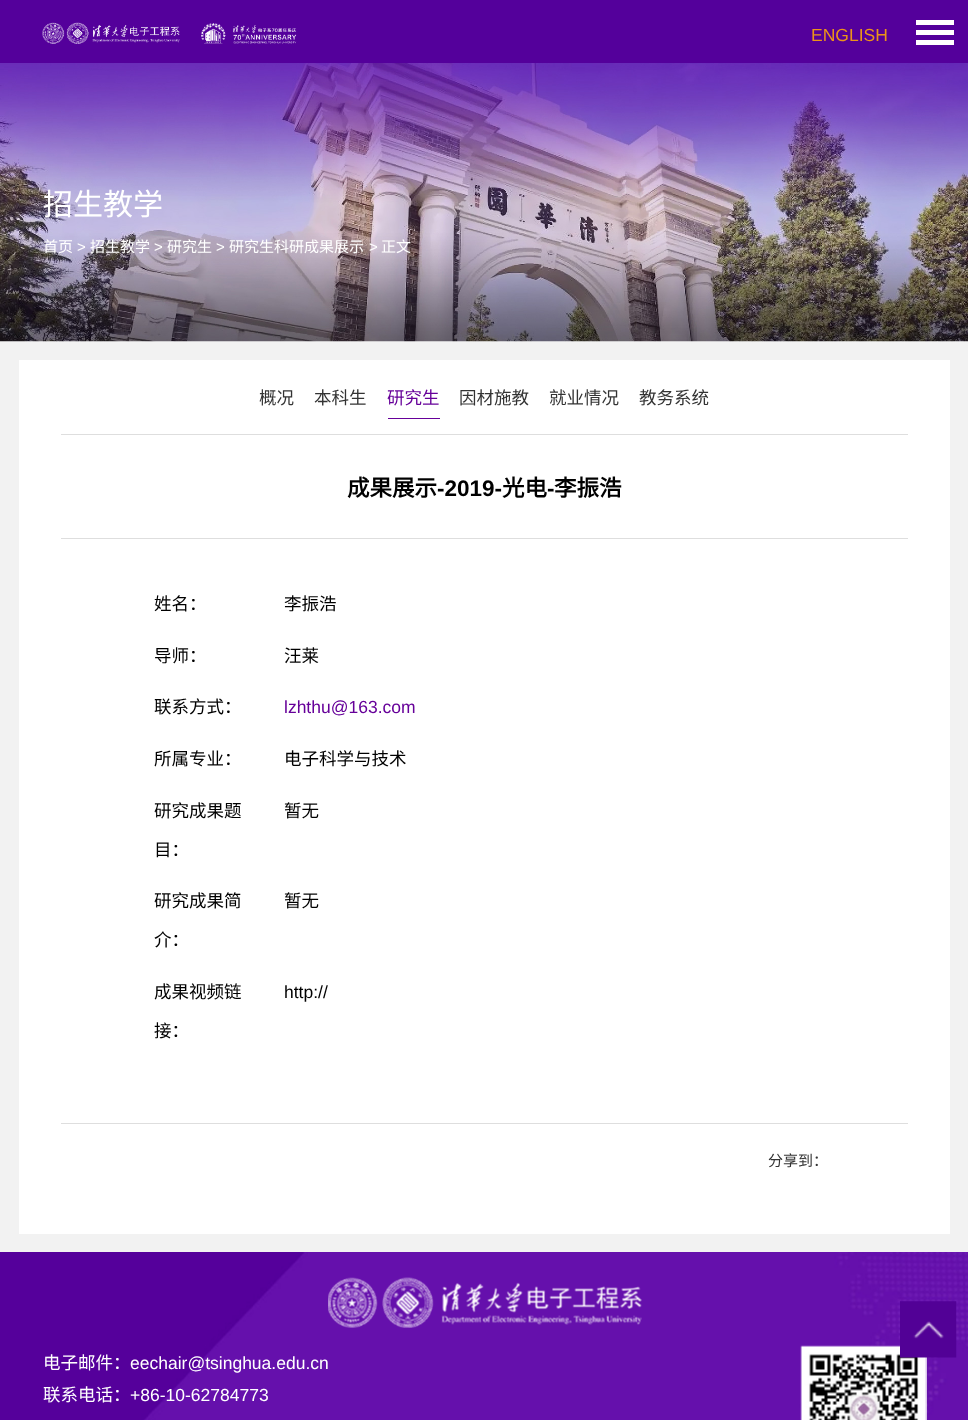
<svg xmlns="http://www.w3.org/2000/svg" width="968" height="1420" viewBox="0 0 968 1420">
  <rect width="100%" height="100%" fill="#f2f2f2"/>
  <path d="M0 0h968v63H0z" fill="#54009b"/>
  <image x="42" y="22" width="255" height="22" href="img/1.png"/>
  <path d="M916 20h38v5H916z" fill="#fff"/>
  <path d="M916 30h38v5H916z" fill="#fff"/>
  <path d="M916 40h38v5H916z" fill="#fff"/>
  <image x="0" y="63" width="968" height="279" href="img/2.png"/>
  <path d="M19 360h931v874H19z" fill="#fff"/>
  <path d="M61 434h847v1H61z" fill="#dedede"/>
  <path d="M388 418h52v1H388z" fill="#609"/>
  <path d="M61 538h847v1H61z" fill="#dedede"/>
  <path d="M61 1123h847v1H61z" fill="#dedede"/>
  <image x="0" y="1252" width="968" height="168" href="img/4.png"/>
  <image x="800" y="1345" width="127" height="75" href="img/6.png"/>
  <image x="900" y="1301" width="57" height="57" href="img/3.png"/>
  <image x="328" y="1277" width="314" height="51" href="img/5.png"/>
  <text x="811" y="41" font-family="Liberation Sans" font-size="17.5" fill="#ec9418">ENGLISH</text>
  <text x="43" y="215" font-family="Noto Sans CJK SC" font-size="30" fill="#fff">招生教学</text>
  <text x="43" y="252" font-family="Noto Sans CJK SC" font-size="15" fill="#fff">首页</text>
  <text x="77" y="252" font-family="Liberation Sans" font-size="15" fill="#fff">&gt;</text>
  <text x="90" y="252" font-family="Noto Sans CJK SC" font-size="15" fill="#fff">招生教学</text>
  <text x="154" y="252" font-family="Liberation Sans" font-size="15" fill="#fff">&gt;</text>
  <text x="167" y="252" font-family="Noto Sans CJK SC" font-size="15" fill="#fff">研究生</text>
  <text x="216" y="252" font-family="Liberation Sans" font-size="15" fill="#fff">&gt;</text>
  <text x="229" y="252" font-family="Noto Sans CJK SC" font-size="15" fill="#fff">研究生科研成果展示</text>
  <text x="369" y="252" font-family="Liberation Sans" font-size="15" fill="#fff">&gt;</text>
  <text x="381" y="252" font-family="Noto Sans CJK SC" font-size="15" fill="#fff">正文</text>
  <g font-family="Noto Sans CJK SC" font-size="17.5" fill="#333">
    <text x="259" y="404">概况</text>
    <text x="314" y="404">本科生</text>
  </g>
  <text x="387" y="404" font-family="Noto Sans CJK SC" font-size="17.5" fill="#609">研究生</text>
  <g font-family="Noto Sans CJK SC" font-size="17.5" fill="#333">
    <text x="459" y="404">因材施教</text>
    <text x="549" y="404">就业情况</text>
    <text x="639" y="404">教务系统</text>
  </g>
  <text x="347" y="496" font-family="Noto Sans CJK SC" font-size="22.5" font-weight="bold" fill="#000">成果展示</text>
  <text x="437" y="496" font-family="Liberation Sans" font-size="22.5" font-weight="bold" fill="#000">-2019-</text>
  <text x="502" y="496" font-family="Noto Sans CJK SC" font-size="22.5" font-weight="bold" fill="#000">光电</text>
  <text x="547" y="496" font-family="Liberation Sans" font-size="22.5" font-weight="bold" fill="#000">-</text>
  <text x="554" y="496" font-family="Noto Sans CJK SC" font-size="22.5" font-weight="bold" fill="#000">李振浩</text>
  <g font-family="Noto Sans CJK SC" font-size="17.5" fill="#000">
    <text x="154" y="610">姓名：</text>
    <text x="284" y="610">李振浩</text>
    <text x="154" y="662">导师：</text>
    <text x="284" y="662">汪莱</text>
    <text x="154" y="713">联系方式：</text>
  </g>
  <text x="284" y="713" font-family="Liberation Sans" font-size="17.5" fill="#609">lzhthu@163.com</text>
  <g font-family="Noto Sans CJK SC" font-size="17.5" fill="#000">
    <text x="154" y="765">所属专业：</text>
    <text x="284" y="765">电子科学与技术</text>
    <text x="154" y="817">研究成果题</text>
    <text x="154" y="856">目：</text>
    <text x="284" y="817">暂无</text>
    <text x="154" y="907">研究成果简</text>
    <text x="154" y="946">介：</text>
    <text x="284" y="907">暂无</text>
    <text x="154" y="998">成果视频链</text>
    <text x="154" y="1037">接：</text>
  </g>
  <text x="284" y="998" font-family="Liberation Sans" font-size="17.5" fill="#000">http://</text>
  <text x="768" y="1166" font-family="Noto Sans CJK SC" font-size="15" fill="#333">分享到：</text>
  <text x="43" y="1369" font-family="Noto Sans CJK SC" font-size="17.5" fill="#fff">电子邮件：</text>
  <text x="130" y="1369" font-family="Liberation Sans" font-size="17.5" fill="#fff">eechair@tsinghua.edu.cn</text>
  <text x="43" y="1401" font-family="Noto Sans CJK SC" font-size="17.5" fill="#fff">联系电话：</text>
  <text x="130" y="1401" font-family="Liberation Sans" font-size="17.5" fill="#fff">+86-10-62784773</text>
</svg>
